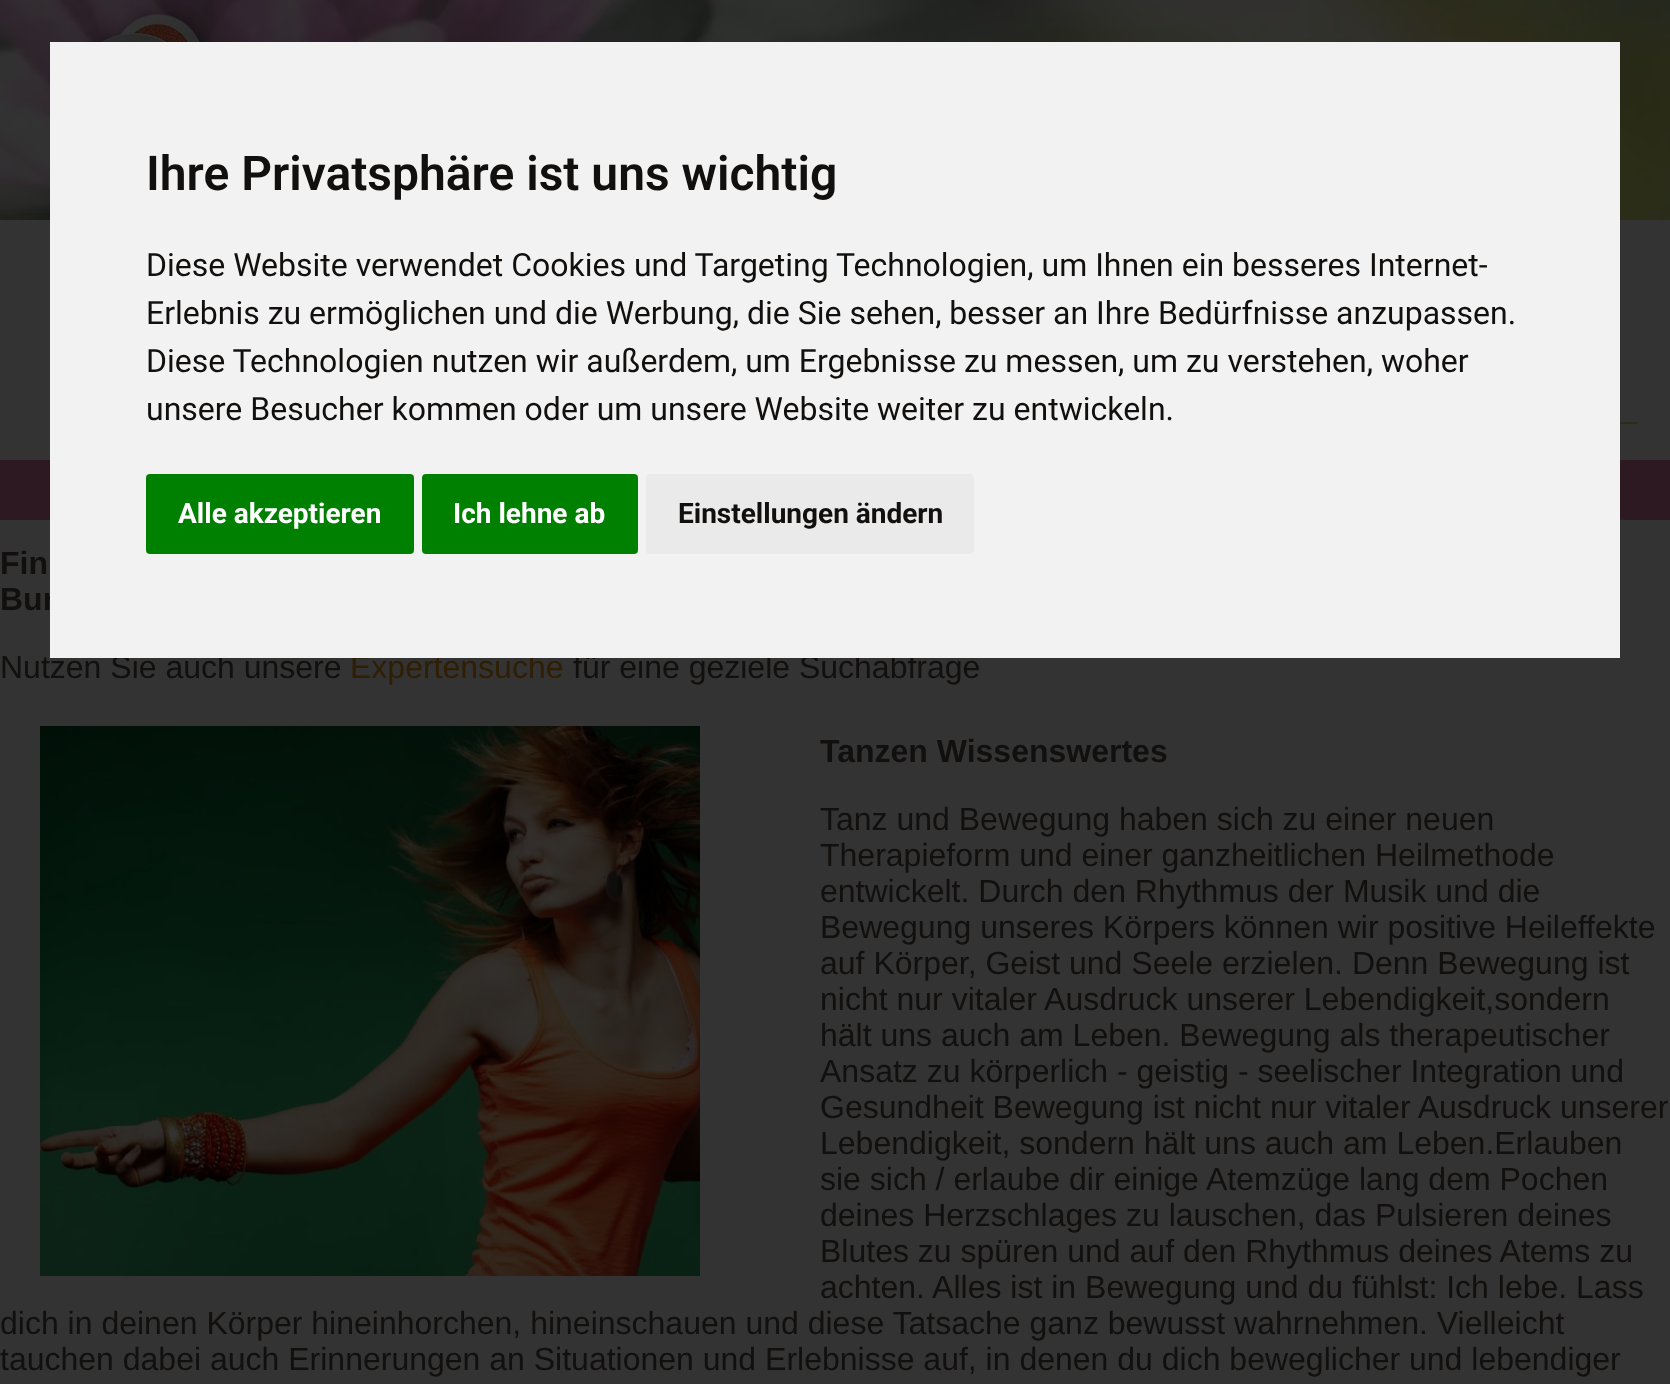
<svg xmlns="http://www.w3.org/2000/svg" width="1670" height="1384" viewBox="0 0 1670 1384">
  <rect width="100%" height="100%" fill="#fff"/>
  <image x="0" y="0" width="1670" height="220" href="img/1.png"/>
  <image x="85" y="0" width="136" height="42" href="img/2.png"/>
  <path d="M0 220h1670v1164H0z" fill="#333"/>
  <path d="M1620 422h18v2H1620z" fill="#2b2d19"/>
  <path d="M0 460h1670v60H0z" fill="#2c1922"/>
  <image x="1620" y="517" width="6" height="3" href="img/3.png"/>
  <image x="40" y="726" width="660" height="550" href="img/4.png"/>
  <g font-family="Liberation Sans" font-size="32" font-weight="bold" fill="#12100f">
    <text x="0" y="574">Fin</text>
    <text x="0" y="610">Bur</text>
  </g>
  <text x="0" y="678" font-family="Liberation Sans" font-size="32" fill="#12100f">Nutzen Sie auch unsere</text>
  <text x="350" y="678" font-family="Liberation Sans" font-size="32" fill="#2f1e02">Expertensuche</text>
  <text x="573" y="678" font-family="Liberation Sans" font-size="32" fill="#12100f">für eine geziele Suchabfrage</text>
  <path d="M50 42h1570v616H50z" fill="#f2f2f2"/>
  <rect x="646" y="474" width="328" height="80" rx="4" fill="#eaeaea"/>
  <text x="678" y="523" font-family="Roboto" font-size="28" font-weight="bold" fill="#12100f">Einstellungen ändern</text>
  <rect x="422" y="474" width="216" height="80" rx="4" fill="#008000"/>
  <text x="453" y="523" font-family="Roboto" font-size="28" font-weight="bold" fill="#fff">Ich lehne ab</text>
  <rect x="146" y="474" width="268" height="80" rx="4" fill="#008000"/>
  <text x="178" y="523" font-family="Roboto" font-size="28" font-weight="bold" fill="#fff">Alle akzeptieren</text>
  <g font-family="Roboto" font-size="32" fill="#12100f">
    <text x="146" y="420">unsere Besucher kommen oder um unsere Website weiter zu entwickeln.</text>
    <text x="146" y="372">Diese Technologien nutzen wir außerdem, um Ergebnisse zu messen, um zu verstehen, woher</text>
    <text x="146" y="324">Erlebnis zu ermöglichen und die Werbung, die Sie sehen, besser an Ihre Bedürfnisse anzupassen.</text>
    <text x="146" y="276">Diese Website verwendet Cookies und Targeting Technologien, um Ihnen ein besseres Internet-</text>
  </g>
  <text x="146" y="190" font-family="Roboto" font-size="48" font-weight="600" fill="#12100f">Ihre Privatsphäre ist uns wichtig</text>
  <text x="820" y="762" font-family="Liberation Sans" font-size="32" font-weight="bold" fill="#12100f">Tanzen Wissenswertes</text>
  <g font-family="Liberation Sans" font-size="32" fill="#12100f">
    <text x="820" y="830">Tanz und Bewegung haben sich zu einer neuen</text>
    <text x="820" y="866">Therapieform und einer ganzheitlichen Heilmethode</text>
    <text x="820" y="902">entwickelt. Durch den Rhythmus der Musik und die</text>
    <text x="820" y="938">Bewegung unseres Körpers können wir positive Heileffekte</text>
    <text x="820" y="974">auf Körper, Geist und Seele erzielen. Denn Bewegung ist</text>
    <text x="820" y="1010">nicht nur vitaler Ausdruck unserer Lebendigkeit,sondern</text>
    <text x="820" y="1046">hält uns auch am Leben. Bewegung als therapeutischer</text>
    <text x="820" y="1082">Ansatz zu körperlich - geistig - seelischer Integration und</text>
    <text x="820" y="1118">Gesundheit Bewegung ist nicht nur vitaler Ausdruck unserer</text>
    <text x="820" y="1154">Lebendigkeit, sondern hält uns auch am Leben.Erlauben</text>
    <text x="820" y="1190">sie sich / erlaube dir einige Atemzüge lang dem Pochen</text>
    <text x="820" y="1226">deines Herzschlages zu lauschen, das Pulsieren deines</text>
    <text x="820" y="1262">Blutes zu spüren und auf den Rhythmus deines Atems zu</text>
    <text x="820" y="1298">achten. Alles ist in Bewegung und du fühlst: Ich lebe. Lass</text>
    <text x="0" y="1334">dich in deinen Körper hineinhorchen, hineinschauen und diese Tatsache ganz bewusst wahrnehmen. Vielleicht</text>
    <text x="0" y="1370">tauchen dabei auch Erinnerungen an Situationen und Erlebnisse auf, in denen du dich beweglicher und lebendiger</text>
  </g>
</svg>
